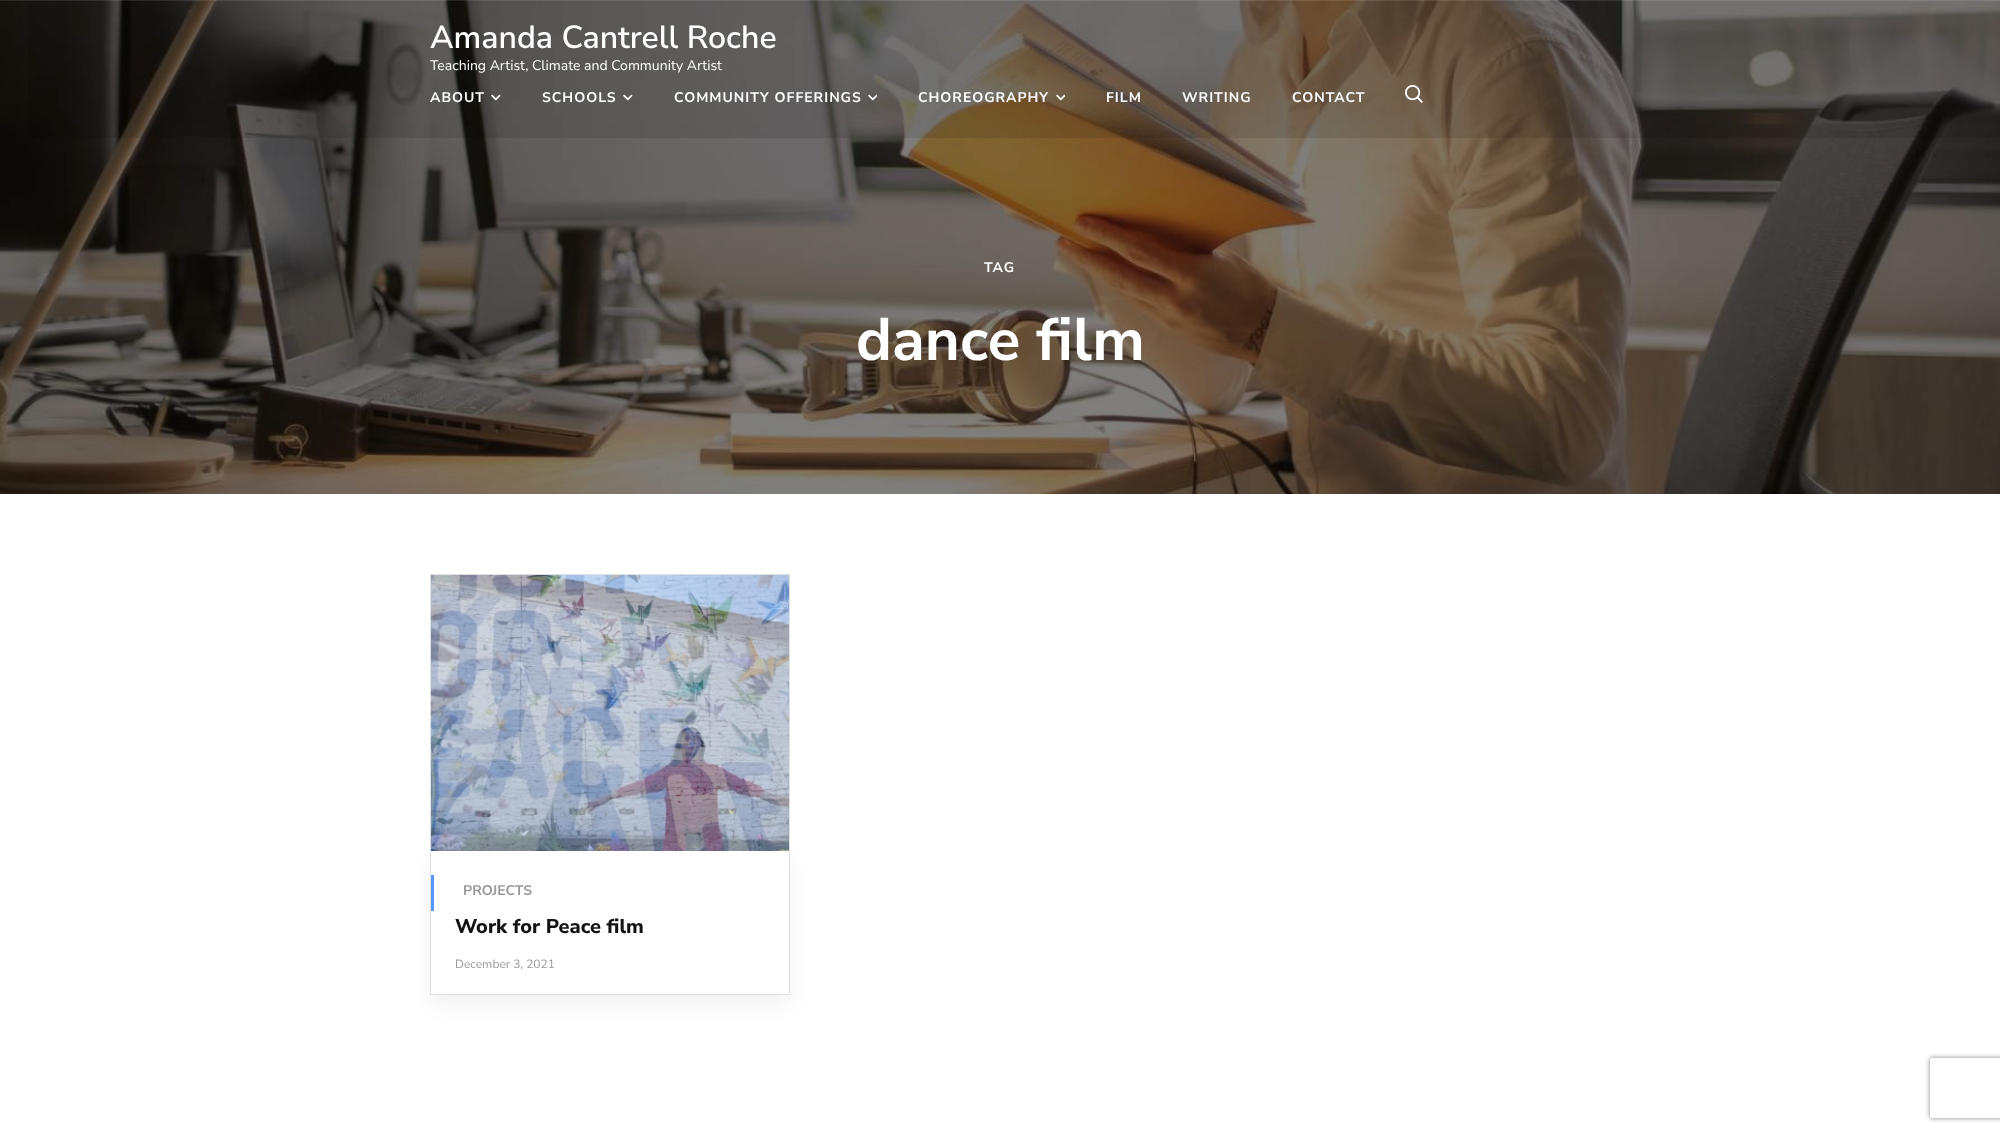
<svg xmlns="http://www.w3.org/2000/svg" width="2000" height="1132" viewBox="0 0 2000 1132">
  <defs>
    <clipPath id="clip1"><path d="M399 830H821V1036H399ZM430 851H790V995H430Z" clip-rule="evenodd"/></clipPath>
    <clipPath id="clip2"><path d="M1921 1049H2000V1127H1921ZM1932 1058H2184C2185 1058 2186 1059 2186 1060V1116C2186 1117 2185 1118 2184 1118H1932C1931 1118 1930 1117 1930 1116V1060C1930 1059 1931 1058 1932 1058Z" clip-rule="evenodd"/></clipPath>
  </defs>
  <rect width="100%" height="100%" fill="#fff"/>
  <image x="0" y="0" width="2000" height="494" href="img/6.png"/>
  <path d="M28 0h1972v138H28z" fill="#0000001a"/>
  <path d="M0 0h2000v1H0z" fill="#ffffff1a"/>
  <image x="491" y="94" width="10" height="7" href="img/1.png"/>
  <image x="623" y="94" width="10" height="7" href="img/2.png"/>
  <image x="868" y="94" width="9" height="7" href="img/3.png"/>
  <image x="1056" y="94" width="9" height="7" href="img/4.png"/>
  <image x="1405" y="85" width="18" height="18" href="img/5.png"/>
  <path d="M430 574h360v1H430z" fill="#e0e0e0"/>
  <path d="M789 574h1v277H789z" fill="#e0e0e0"/>
  <path d="M430 574h1v277H430z" fill="#e0e0e0"/>
  <g clip-path="url(#clip1)">
    <path d="M430 861h360v144H430z" fill="#0000000d" filter="blur(10px)"/>
  </g>
  <image x="431" y="575" width="358" height="276" href="img/7.png"/>
  <path d="M789 851h1v144H789z" fill="#e0e0e0"/>
  <path d="M430 994h360v1H430z" fill="#e0e0e0"/>
  <path d="M430 851h1v144H430z" fill="#e0e0e0"/>
  <path d="M431 875h3v36H431z" fill="#5798ff"/>
  <g clip-path="url(#clip2)">
    <rect x="1930" y="1058" width="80" height="60" rx="2" fill="#808080" filter="blur(2.5px)"/>
  </g>
  <text x="430" y="48" font-family="Nunito Sans" font-size="32" font-weight="600" fill="#fff">Amanda Cantrell Roche</text>
  <text x="430" y="70" font-family="Nunito Sans" font-size="14" fill="#fff">Teaching Artist, Climate and Community Artist</text>
  <g font-family="Nunito Sans" font-size="14" font-weight="bold" letter-spacing="1" fill="#fff">
    <text x="430" y="102">ABOUT</text>
    <text x="542" y="102">SCHOOLS</text>
    <text x="674" y="102">COMMUNITY OFFERINGS</text>
    <text x="918" y="102">CHOREOGRAPHY</text>
    <text x="1106" y="102">FILM</text>
    <text x="1182" y="102">WRITING</text>
    <text x="1292" y="102">CONTACT</text>
    <text x="984" y="272">TAG</text>
  </g>
  <text x="856" y="360" font-family="Nunito Sans" font-size="60" font-weight="bold" fill="#fff">dance film</text>
  <text x="463" y="895" font-family="Nunito Sans" font-size="14" font-weight="bold" fill="#999">PROJECTS</text>
  <text x="455" y="933" font-family="Nunito Sans" font-size="20" font-weight="800" fill="#121212">Work for Peace film</text>
  <text x="455" y="968" font-family="Nunito Sans" font-size="12" fill="#999">December 3, 2021</text>
</svg>
